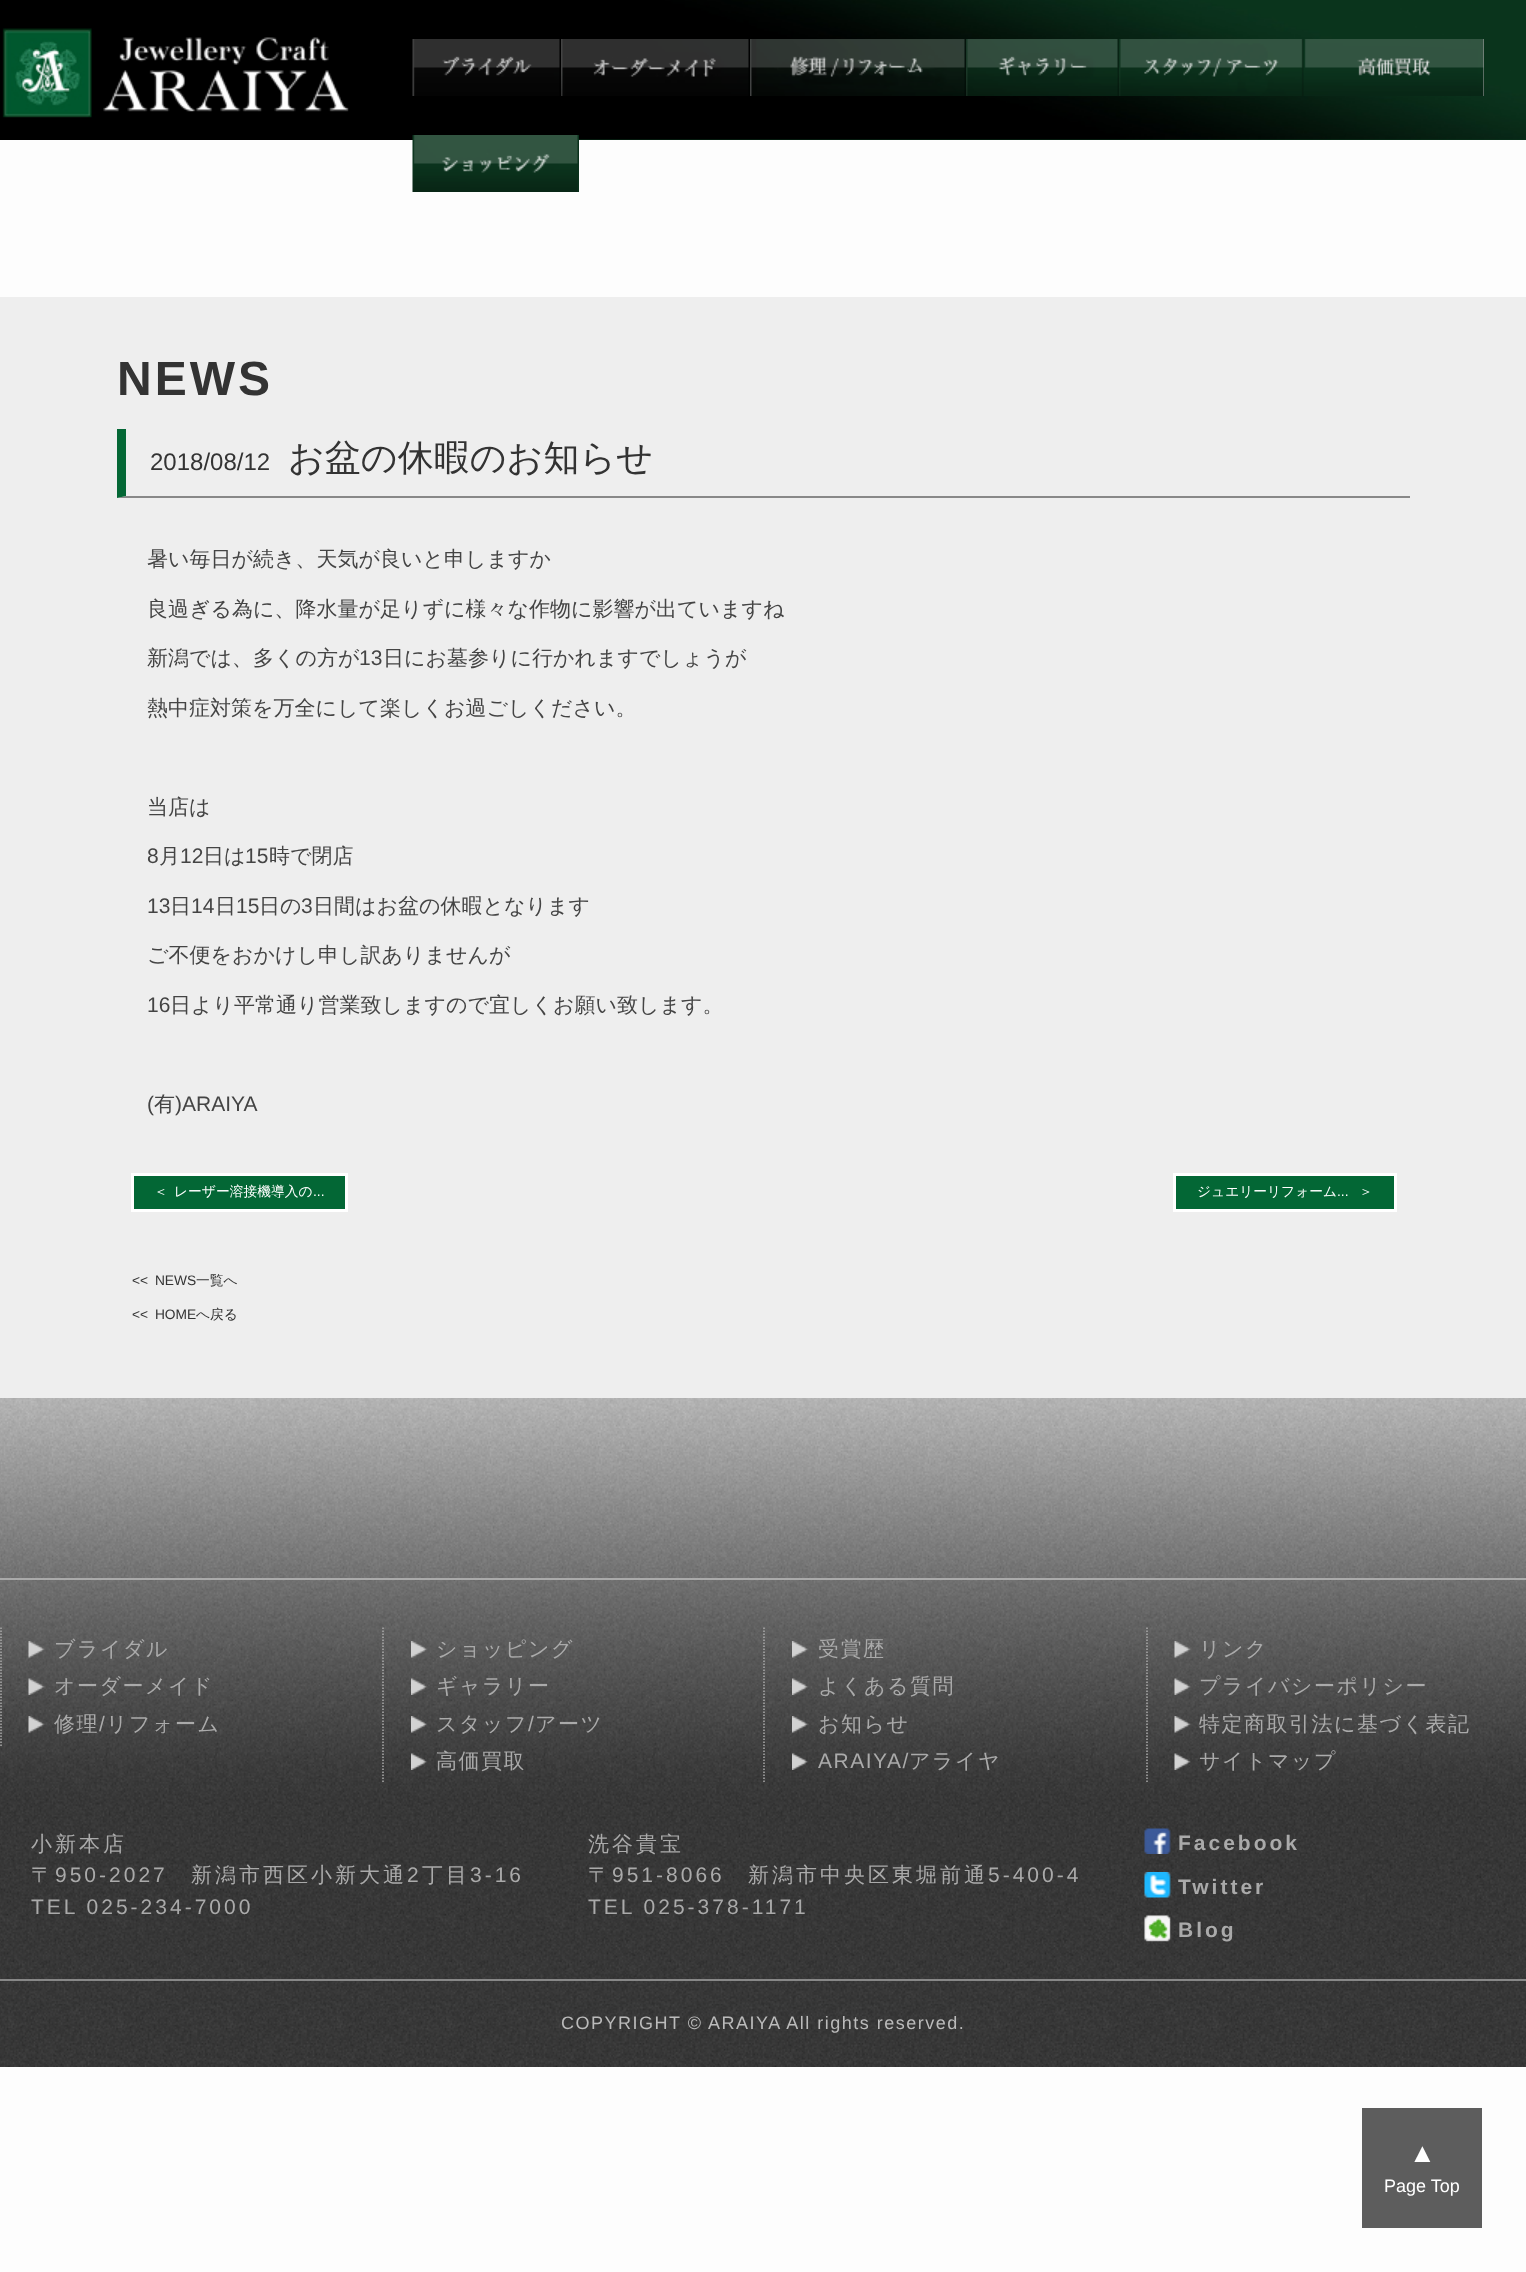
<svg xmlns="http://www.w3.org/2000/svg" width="1526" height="2272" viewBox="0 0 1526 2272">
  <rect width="100%" height="100%" fill="#fdfdfd"/>
  <image x="0" y="1398" width="1526" height="669" href="img/1.png"/>
  <path d="M0 0h477v140H0z" fill="#000"/>
  <path d="M579 139h947v1H579z" fill="#0b341d"/>
  <image x="477" y="0" width="1049" height="140" href="img/2.png"/>
  <image x="2" y="28" width="347" height="90" href="img/3.png"/>
  <image x="412" y="39" width="149" height="57" href="img/4.png"/>
  <image x="561" y="39" width="189" height="57" href="img/5.png"/>
  <image x="750" y="39" width="216" height="57" href="img/6.png"/>
  <image x="966" y="39" width="153" height="57" href="img/7.png"/>
  <image x="1119" y="39" width="185" height="57" href="img/8.png"/>
  <path d="M1483 39h1v57H1483z" fill="#aaa"/>
  <image x="1303" y="39" width="181" height="57" href="img/9.png"/>
  <image x="412" y="135" width="167" height="57" href="img/10.png"/>
  <path d="M0 297h1526v1101H0z" fill="#eee"/>
  <path d="M1410 498H117L126 496H1410Z" fill="#888"/>
  <path d="M117 498V429H126V496Z" fill="#036735"/>
  <path d="M132.5 1174.5h214v36H132.5z" fill="#036735" stroke="#fff" stroke-width="3"/>
  <path d="M1174.5 1174.5h221v36H1174.5z" fill="#036735" stroke="#fff" stroke-width="3"/>
  <path d="M0 1578h1526v2H0z" fill="#aaa"/>
  <path d="M1 1627.5V1746" fill="none" stroke="#aaa" stroke-width="1.5" stroke-dasharray="1.5 1.5"/>
  <image x="28" y="1641" width="17" height="17" href="img/11.png"/>
  <image x="28" y="1678" width="17" height="17" href="img/12.png"/>
  <image x="28" y="1716" width="17" height="17" href="img/13.png"/>
  <path d="M383 1627.5V1783.5" fill="none" stroke="#aaa" stroke-width="1.5" stroke-dasharray="1.5 1.5"/>
  <image x="411" y="1641" width="17" height="17" href="img/14.png"/>
  <image x="411" y="1678" width="17" height="17" href="img/15.png"/>
  <image x="411" y="1716" width="17" height="17" href="img/16.png"/>
  <image x="411" y="1753" width="17" height="17" href="img/17.png"/>
  <path d="M764 1627.5V1783.5" fill="none" stroke="#aaa" stroke-width="1.5" stroke-dasharray="1.5 1.5"/>
  <image x="792" y="1641" width="17" height="17" href="img/18.png"/>
  <image x="792" y="1678" width="17" height="17" href="img/19.png"/>
  <image x="792" y="1716" width="17" height="17" href="img/20.png"/>
  <image x="792" y="1753" width="17" height="17" href="img/21.png"/>
  <path d="M1147 1627.5V1783.5" fill="none" stroke="#aaa" stroke-width="1.5" stroke-dasharray="1.5 1.5"/>
  <image x="1174" y="1641" width="17" height="17" href="img/22.png"/>
  <image x="1174" y="1678" width="17" height="17" href="img/23.png"/>
  <image x="1174" y="1716" width="17" height="17" href="img/24.png"/>
  <image x="1174" y="1753" width="17" height="17" href="img/25.png"/>
  <image x="1144" y="1828" width="27" height="26" href="img/26.png"/>
  <image x="1144" y="1872" width="27" height="26" href="img/27.png"/>
  <image x="1144" y="1915" width="27" height="27" href="img/28.png"/>
  <path d="M0 1979h1526v2H0z" fill="#888"/>
  <path d="M1362 2108h120v120H1362z" fill="#5d5d5d"/>
  <text x="117" y="395" font-family="Liberation Sans" font-size="48" font-weight="bold" letter-spacing="3" fill="#333">NEWS</text>
  <text x="150" y="470" font-family="Liberation Sans" font-size="24" fill="#333">2018/08/12</text>
  <text x="288" y="470" font-family="WenQuanYi Zen Hei" font-size="36" font-weight="500" fill="#333">お盆の休暇のお知らせ</text>
  <g font-family="WenQuanYi Zen Hei" font-size="21" font-weight="500" fill="#444">
    <text x="147" y="566">暑い毎日が続き、天気が良いと申しますか</text>
    <text x="147" y="616">良過ぎる為に、降水量が足りずに様々な作物に影響が出ていますね</text>
    <text x="147" y="665">新潟では、多くの方が</text>
  </g>
  <text x="359" y="665" font-family="Liberation Sans" font-size="21" fill="#444">13</text>
  <g font-family="WenQuanYi Zen Hei" font-size="21" font-weight="500" fill="#444">
    <text x="383" y="665">日にお墓参りに行かれますでしょうが</text>
    <text x="147" y="715">熱中症対策を万全にして楽しくお過ごしください。</text>
    <text x="147" y="814">当店は</text>
  </g>
  <text x="147" y="863" font-family="Liberation Sans" font-size="21" fill="#444">8</text>
  <text x="159" y="863" font-family="WenQuanYi Zen Hei" font-size="21" font-weight="500" fill="#444">月</text>
  <text x="180" y="863" font-family="Liberation Sans" font-size="21" fill="#444">12</text>
  <text x="203" y="863" font-family="WenQuanYi Zen Hei" font-size="21" font-weight="500" fill="#444">日は</text>
  <text x="245" y="863" font-family="Liberation Sans" font-size="21" fill="#444">15</text>
  <text x="269" y="863" font-family="WenQuanYi Zen Hei" font-size="21" font-weight="500" fill="#444">時で閉店</text>
  <text x="147" y="913" font-family="Liberation Sans" font-size="21" fill="#444">13</text>
  <text x="170" y="913" font-family="WenQuanYi Zen Hei" font-size="21" font-weight="500" fill="#444">日</text>
  <text x="191" y="913" font-family="Liberation Sans" font-size="21" fill="#444">14</text>
  <text x="215" y="913" font-family="WenQuanYi Zen Hei" font-size="21" font-weight="500" fill="#444">日</text>
  <text x="236" y="913" font-family="Liberation Sans" font-size="21" fill="#444">15</text>
  <text x="259" y="913" font-family="WenQuanYi Zen Hei" font-size="21" font-weight="500" fill="#444">日の</text>
  <text x="301" y="913" font-family="Liberation Sans" font-size="21" fill="#444">3</text>
  <g font-family="WenQuanYi Zen Hei" font-size="21" font-weight="500" fill="#444">
    <text x="313" y="913">日間はお盆の休暇となります</text>
    <text x="147" y="962">ご不便をおかけし申し訳ありませんが</text>
  </g>
  <text x="147" y="1012" font-family="Liberation Sans" font-size="21" fill="#444">16</text>
  <text x="170" y="1012" font-family="WenQuanYi Zen Hei" font-size="21" font-weight="500" fill="#444">日より平常通り営業致しますので宜しくお願い致します。</text>
  <text x="147" y="1111" font-family="Liberation Sans" font-size="21" fill="#444">(</text>
  <text x="154" y="1111" font-family="WenQuanYi Zen Hei" font-size="21" font-weight="500" fill="#444">有</text>
  <text x="175" y="1111" font-family="Liberation Sans" font-size="21" fill="#444">)ARAIYA</text>
  <g font-family="WenQuanYi Zen Hei" font-size="13.75" font-weight="500" fill="#fff">
    <text x="154" y="1196">＜</text>
    <text x="174" y="1196">レーザー溶接機導入の</text>
  </g>
  <text x="313" y="1196" font-family="Liberation Sans" font-size="13.75" fill="#fff">...</text>
  <text x="1197" y="1196" font-family="WenQuanYi Zen Hei" font-size="13.75" font-weight="500" fill="#fff">ジュエリーリフォーム</text>
  <text x="1337" y="1196" font-family="Liberation Sans" font-size="13.75" fill="#fff">...</text>
  <text x="1359" y="1196" font-family="WenQuanYi Zen Hei" font-size="13.75" font-weight="500" fill="#fff">＞</text>
  <text x="132" y="1285" font-family="Liberation Sans" font-size="13.75" fill="#333">&lt;&lt; NEWS</text>
  <text x="196" y="1285" font-family="WenQuanYi Zen Hei" font-size="13.75" font-weight="500" fill="#333">一覧へ</text>
  <text x="132" y="1319" font-family="Liberation Sans" font-size="13.75" fill="#333">&lt;&lt; HOME</text>
  <text x="196" y="1319" font-family="WenQuanYi Zen Hei" font-size="13.75" font-weight="500" fill="#333">へ戻る</text>
  <g font-family="WenQuanYi Zen Hei" font-size="21" font-weight="500" letter-spacing="1.5" fill="#aaa">
    <text x="54" y="1656">ブライダル</text>
    <text x="54" y="1693">オーダーメイド</text>
    <text x="54" y="1731">修理</text>
  </g>
  <text x="99" y="1731" font-family="Liberation Sans" font-size="21" letter-spacing="1.5" fill="#aaa">/</text>
  <g font-family="WenQuanYi Zen Hei" font-size="21" font-weight="500" letter-spacing="1.5" fill="#aaa">
    <text x="106" y="1731">リフォーム</text>
    <text x="436" y="1656">ショッピング</text>
    <text x="436" y="1693">ギャラリー</text>
    <text x="436" y="1731">スタッフ</text>
  </g>
  <text x="528" y="1731" font-family="Liberation Sans" font-size="21" letter-spacing="1.5" fill="#aaa">/</text>
  <g font-family="WenQuanYi Zen Hei" font-size="21" font-weight="500" letter-spacing="1.5" fill="#aaa">
    <text x="535" y="1731">アーツ</text>
    <text x="436" y="1768">高価買取</text>
    <text x="818" y="1656">受賞歴</text>
    <text x="818" y="1693">よくある質問</text>
    <text x="818" y="1731">お知らせ</text>
  </g>
  <text x="818" y="1768" font-family="Liberation Sans" font-size="21" letter-spacing="1.5" fill="#aaa">ARAIYA/</text>
  <g font-family="WenQuanYi Zen Hei" font-size="21" font-weight="500" letter-spacing="1.5" fill="#aaa">
    <text x="909" y="1768">アライヤ</text>
    <text x="1199" y="1656">リンク</text>
    <text x="1199" y="1693">プライバシーポリシー</text>
    <text x="1199" y="1731">特定商取引法に基づく表記</text>
    <text x="1199" y="1768">サイトマップ</text>
  </g>
  <g font-family="WenQuanYi Zen Hei" font-size="21" font-weight="500" letter-spacing="3" fill="#aaa">
    <text x="31" y="1851">小新本店</text>
    <text x="31" y="1882">〒</text>
  </g>
  <text x="55" y="1882" font-family="Liberation Sans" font-size="21" letter-spacing="3" fill="#aaa">950-2027</text>
  <text x="191" y="1882" font-family="WenQuanYi Zen Hei" font-size="21" font-weight="500" letter-spacing="3" fill="#aaa">新潟市西区小新大通</text>
  <text x="407" y="1882" font-family="Liberation Sans" font-size="21" letter-spacing="3" fill="#aaa">2</text>
  <text x="422" y="1882" font-family="WenQuanYi Zen Hei" font-size="21" font-weight="500" letter-spacing="3" fill="#aaa">丁目</text>
  <g font-family="Liberation Sans" font-size="21" letter-spacing="3" fill="#aaa">
    <text x="470" y="1882">3-16</text>
    <text x="31" y="1914">TEL 025-234-7000</text>
  </g>
  <g font-family="WenQuanYi Zen Hei" font-size="21" font-weight="500" letter-spacing="3" fill="#aaa">
    <text x="588" y="1851">洗谷貴宝</text>
    <text x="588" y="1882">〒</text>
  </g>
  <text x="612" y="1882" font-family="Liberation Sans" font-size="21" letter-spacing="3" fill="#aaa">951-8066</text>
  <text x="748" y="1882" font-family="WenQuanYi Zen Hei" font-size="21" font-weight="500" letter-spacing="3" fill="#aaa">新潟市中央区東堀前通</text>
  <g font-family="Liberation Sans" font-size="21" letter-spacing="3" fill="#aaa">
    <text x="988" y="1882">5-400-4</text>
    <text x="588" y="1914">TEL 025-378-1171</text>
  </g>
  <g font-family="Liberation Sans" font-size="21" font-weight="bold" letter-spacing="3" fill="#aaa">
    <text x="1178" y="1850">Facebook</text>
    <text x="1178" y="1894">Twitter</text>
    <text x="1178" y="1937">Blog</text>
  </g>
  <text x="561" y="2029" font-family="Liberation Sans" font-size="18" letter-spacing="1.5" fill="#bbb">COPYRIGHT © ARAIYA All rights reserved.</text>
  <text x="1409" y="2162" font-family="Liberation Sans" font-size="27" fill="#fff">▲</text>
  <text x="1384" y="2192" font-family="Liberation Sans" font-size="18" fill="#fff">Page Top</text>
</svg>
